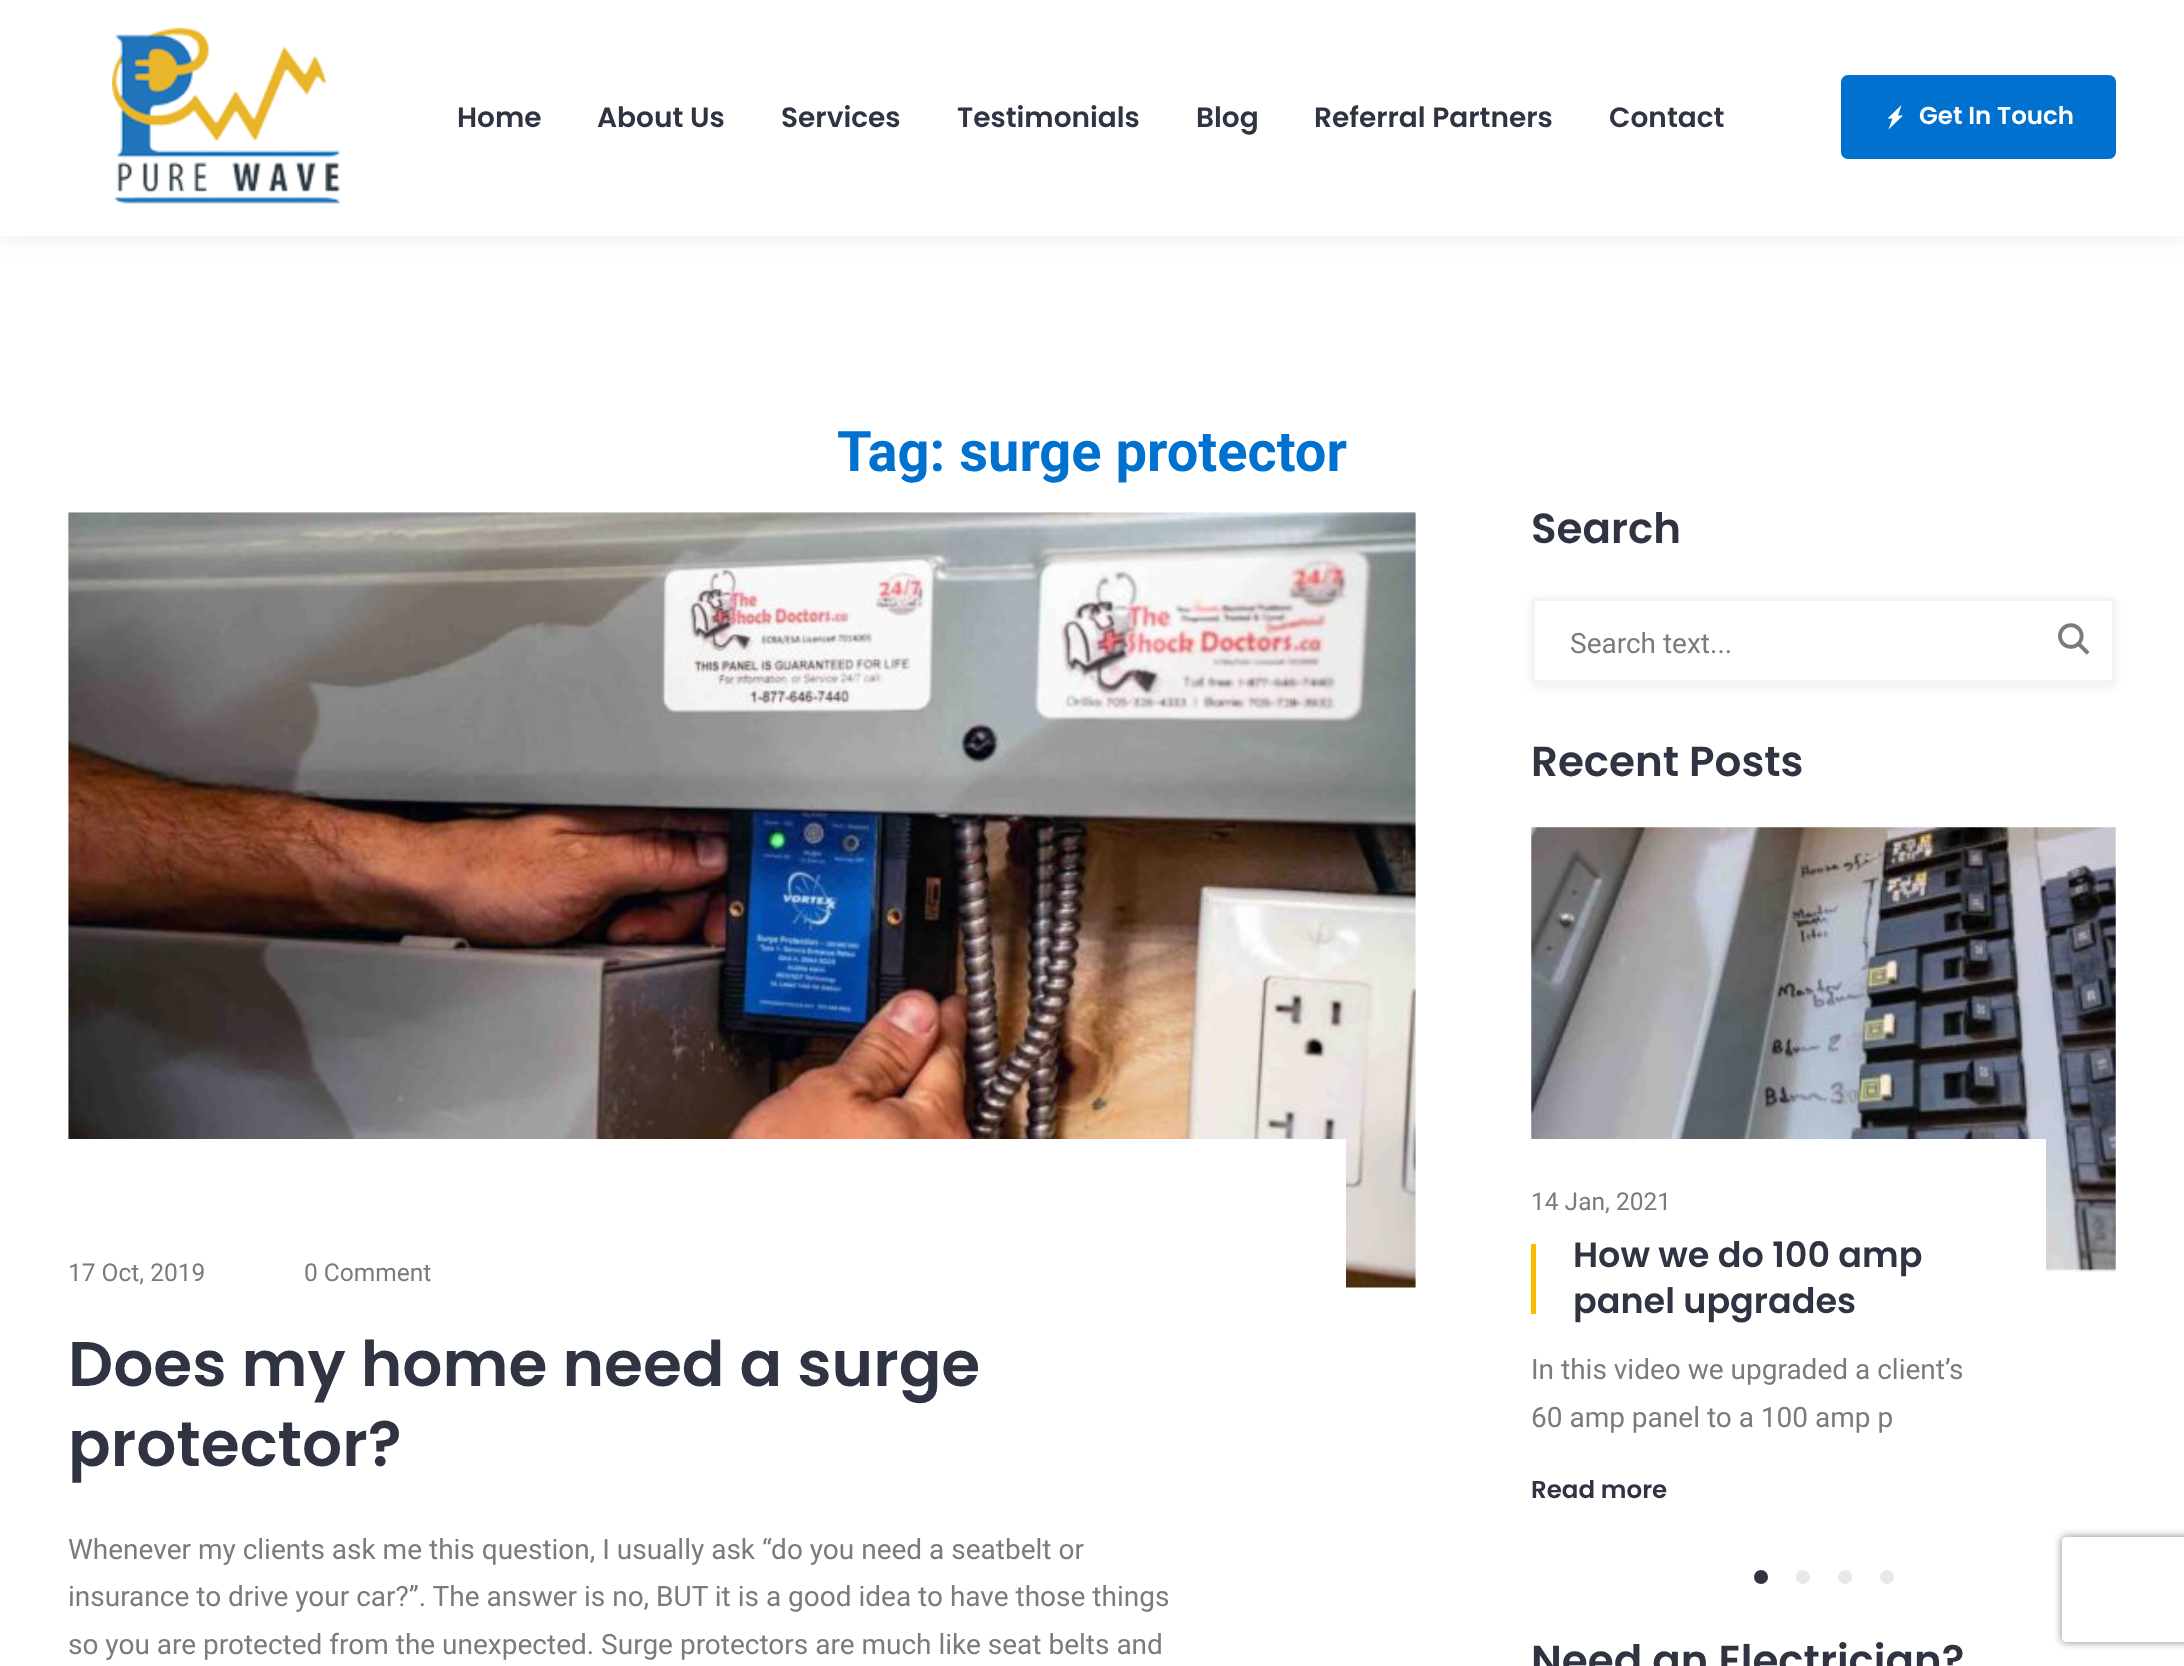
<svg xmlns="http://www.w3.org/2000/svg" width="2184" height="1666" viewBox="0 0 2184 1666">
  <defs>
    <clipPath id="clip1"><path d="M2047 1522H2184V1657H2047ZM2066 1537H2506C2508 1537 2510 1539 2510 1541V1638C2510 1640 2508 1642 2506 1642H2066C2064 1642 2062 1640 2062 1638V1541C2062 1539 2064 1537 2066 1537Z" clip-rule="evenodd"/></clipPath>
  </defs>
  <rect width="100%" height="100%" fill="#fff"/>
  <path d="M0 0h2184v236H0z" fill="#3034421a" filter="blur(13px)"/>
  <path d="M0 0h2184v236H0z" fill="#fff"/>
  <image x="112" y="27" width="228" height="177" href="img/1.png"/>
  <rect x="1841" y="75" width="275" height="84" rx="7" fill="#0071ce"/>
  <path d="M1901.5 105L1887.5 118.5H1892.5L1888.5 129.5L1903 115.5H1898Z" fill="#fff"/>
  <path d="M68 513h1348v147H68z" fill="#eaeaec"/>
  <image x="68" y="512" width="1348" height="776" href="img/2.png"/>
  <path d="M68 1139h1278v149H68z" fill="#fff"/>
  <rect x="1531" y="600" width="585" height="88" rx="5" fill="#ababab2e" filter="blur(4.5px)"/>
  <rect x="1533" y="599" width="581" height="83" rx="3" fill="#fff" stroke="#f4f4f4" stroke-width="4"/>
  <image x="2058" y="623" width="32" height="32" href="img/3.png"/>
  <image x="1531" y="827" width="585" height="445" href="img/4.png"/>
  <path d="M1531 1139h515v133H1531z" fill="#fff"/>
  <path d="M1531 1244h5v70H1531z" fill="#f7be00"/>
  <circle cx="1761" cy="1577" r="7" fill="#303442"/>
  <circle cx="1803" cy="1577" r="7" fill="#e8e8e8"/>
  <circle cx="1845" cy="1577" r="7" fill="#e8e8e8"/>
  <circle cx="1887" cy="1577" r="7" fill="#e8e8e8"/>
  <g clip-path="url(#clip1)">
    <rect x="2062" y="1537" width="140" height="105" rx="4" fill="#808080" filter="blur(4.5px)"/>
  </g>
  <g font-family="Poppins" font-size="28" font-weight="600" fill="#303442">
    <text x="457" y="127">Home</text>
    <text x="597" y="127">About Us</text>
    <text x="781" y="127">Services</text>
    <text x="957" y="127">Testimonials</text>
    <text x="1196" y="127">Blog</text>
    <text x="1314" y="127">Referral Partners</text>
    <text x="1609" y="127">Contact</text>
  </g>
  <text x="1919" y="124" font-family="Poppins" font-size="24.5" font-weight="600" fill="#fff">Get In Touch</text>
  <text x="837" y="471" font-family="Roboto" font-size="56" font-weight="bold" fill="#0071ce">Tag: surge protector</text>
  <g font-family="Roboto" font-size="24.5" fill="#7b7b7b">
    <text x="68" y="1281">17 Oct, 2019</text>
    <text x="304" y="1281">0 Comment</text>
  </g>
  <g font-family="Poppins" font-size="63" font-weight="600" fill="#303442">
    <text x="68" y="1386">Does my home need a surge</text>
    <text x="68" y="1466">protector?</text>
  </g>
  <g font-family="Roboto" font-size="28" fill="#7b7b7b">
    <text x="68" y="1559">Whenever my clients ask me this question, I usually ask “do you need a seatbelt or</text>
    <text x="68" y="1606">insurance to drive your car?”. The answer is no, BUT it is a good idea to have those things</text>
    <text x="68" y="1654">so you are protected from the unexpected. Surge protectors are much like seat belts and</text>
  </g>
  <text x="1531" y="543" font-family="Poppins" font-size="42" font-weight="600" fill="#303442">Search</text>
  <text x="1570" y="653" font-family="Roboto" font-size="28" fill="#7b7b7b">Search text...</text>
  <text x="1531" y="776" font-family="Poppins" font-size="42" font-weight="600" fill="#303442">Recent Posts</text>
  <text x="1531" y="1210" font-family="Roboto" font-size="24.5" fill="#7b7b7b">14 Jan, 2021</text>
  <g font-family="Poppins" font-size="35" font-weight="600" fill="#303442">
    <text x="1573" y="1267">How we do 100 amp</text>
    <text x="1573" y="1313">panel upgrades</text>
  </g>
  <g font-family="Roboto" font-size="28" fill="#7b7b7b">
    <text x="1531" y="1379">In this video we upgraded a client’s</text>
    <text x="1531" y="1427">60 amp panel to a 100 amp p</text>
  </g>
  <text x="1531" y="1498" font-family="Poppins" font-size="24.5" font-weight="600" fill="#303442">Read more</text>
  <text x="1531" y="1675" font-family="Poppins" font-size="42" font-weight="600" fill="#303442">Need an Electrician?</text>
</svg>
